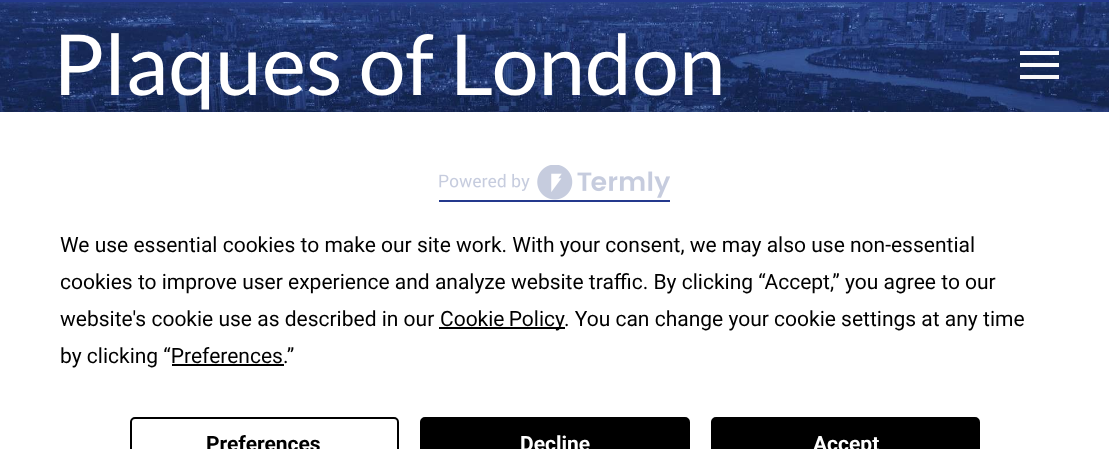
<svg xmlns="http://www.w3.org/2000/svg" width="1109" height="449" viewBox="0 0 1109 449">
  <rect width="100%" height="100%" fill="#24398d"/>
  <image x="0" y="2" width="1109" height="110" href="img/1.png"/>
  <path d="M1020 63h39v4H1020z" fill="#fff"/>
  <path d="M1020 51h39v4H1020z" fill="#fff"/>
  <path d="M1020 75h39v4H1020z" fill="#fff"/>
  <path d="M0 112h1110v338H0z" fill="#00000040" filter="blur(30.5px)"/>
  <path d="M0 112h1109v337H0z" fill="#fff"/>
  <path d="M439 200h231v2H439z" fill="#24398d"/>
  <image x="439" y="165" width="231" height="35" href="img/2.png"/>
  <path d="M439 327h126v2H439z" fill="#000"/>
  <path d="M172 364h112v2H172z" fill="#000"/>
  <rect x="131" y="418" width="267" height="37" rx="4" fill="none" stroke="#000" stroke-width="2"/>
  <rect x="421" y="418" width="268" height="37" rx="4" fill="#000" stroke="#000" stroke-width="2"/>
  <rect x="712" y="418" width="267" height="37" rx="4" fill="#000" stroke="#000" stroke-width="2"/>
  <text x="53" y="95" font-family="Lato" font-size="84" fill="#fff">Plaques of London</text>
  <g font-family="Roboto" font-size="21" fill="#000">
    <text x="60" y="252">We use essential cookies to make our site work. With your consent, we may also use non-essential</text>
    <text x="60" y="289">cookies to improve user experience and analyze website traffic. By clicking “Accept,” you agree to our</text>
    <text x="60" y="326">website's cookie use as described in our</text>
    <text x="440" y="326" word-spacing="-1">Cookie Policy</text>
    <text x="564" y="326">. You can change your cookie settings at any time</text>
    <text x="60" y="363">by clicking “Preferences.”</text>
  </g>
  <text x="206" y="451" font-family="Roboto" font-size="21" font-weight="bold" fill="#000">Preferences</text>
  <g font-family="Roboto" font-size="21" font-weight="bold" fill="#fff">
    <text x="520" y="451">Decline</text>
    <text x="813" y="451">Accept</text>
  </g>
</svg>
